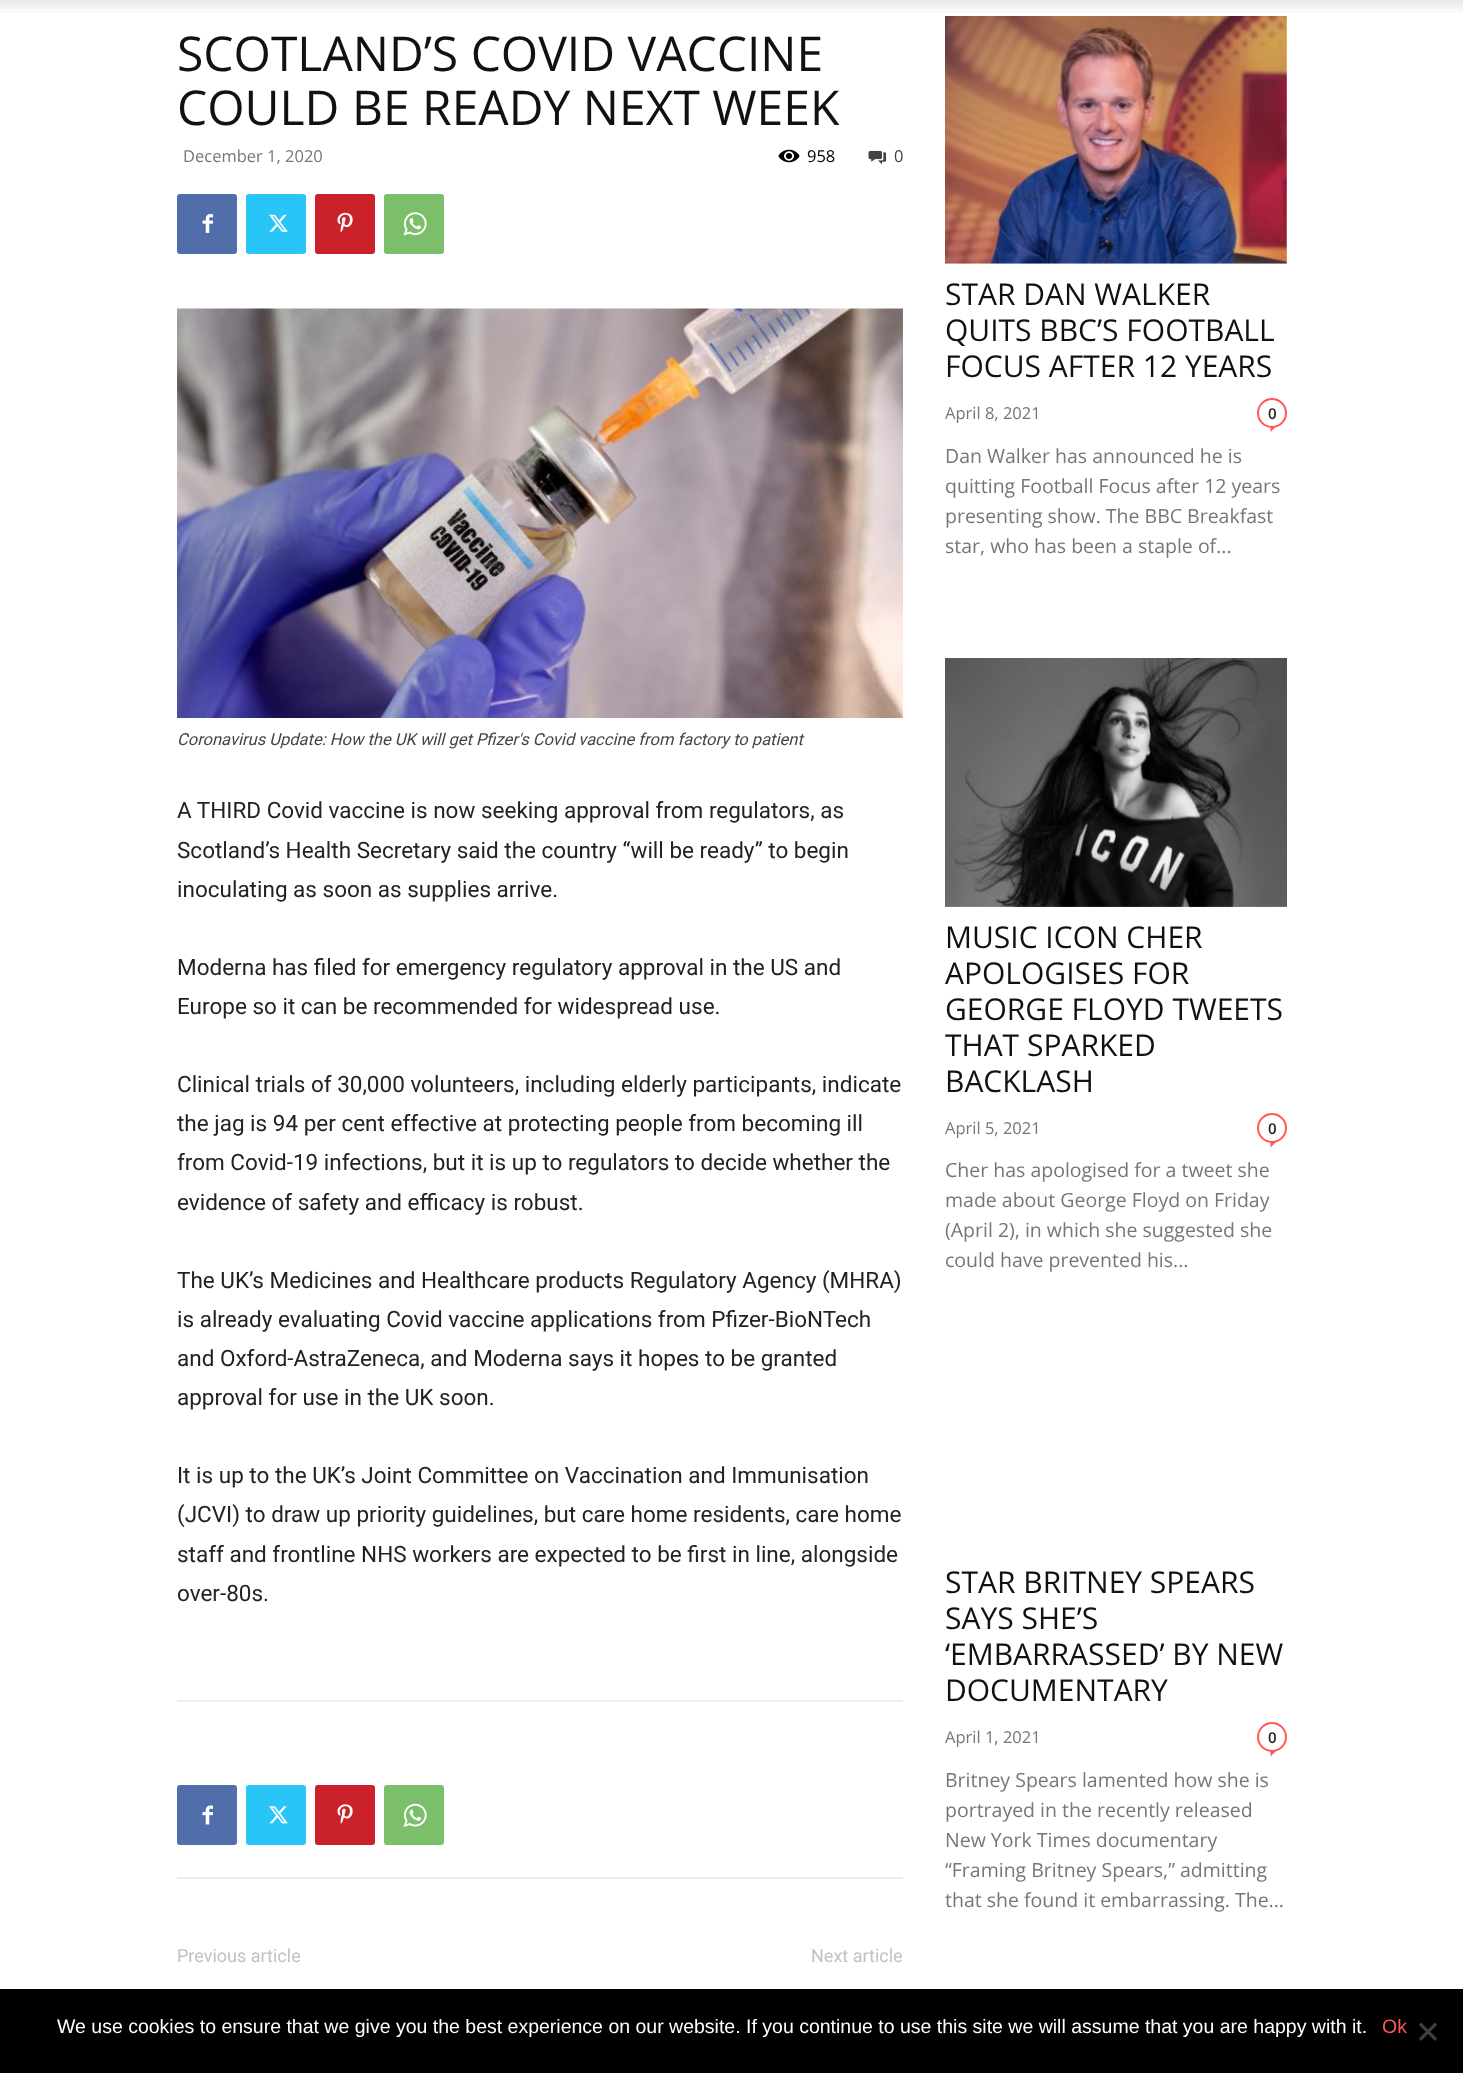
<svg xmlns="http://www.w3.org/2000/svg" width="1463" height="2073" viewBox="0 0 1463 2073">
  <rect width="100%" height="100%" fill="#fff"/>
  <image x="0" y="0" width="1463" height="13" href="img/1.png"/>
  <image x="778" y="149" width="22" height="14" href="img/2.png"/>
  <image x="868" y="150" width="19" height="15" href="img/3.png"/>
  <rect x="177" y="194" width="60" height="60" rx="3" fill="#516eab"/>
  <image x="202" y="214" width="11" height="19" href="img/4.png"/>
  <rect x="246" y="194" width="60" height="60" rx="3" fill="#29c5f6"/>
  <image x="269" y="214" width="19" height="18" href="img/5.png"/>
  <rect x="315" y="194" width="60" height="60" rx="3" fill="#ca212a"/>
  <image x="337" y="212" width="16" height="21" href="img/6.png"/>
  <rect x="384" y="194" width="60" height="60" rx="3" fill="#7bbf6a"/>
  <image x="403" y="212" width="24" height="24" href="img/7.png"/>
  <image x="177" y="308" width="726" height="410" href="img/8.png"/>
  <path d="M177 1700h726v2H177z" fill="#ededed"/>
  <path d="M177 1877h726v2H177z" fill="#ededed"/>
  <rect x="177" y="1785" width="60" height="60" rx="3" fill="#516eab"/>
  <image x="202" y="1805" width="11" height="20" href="img/9.png"/>
  <rect x="246" y="1785" width="60" height="60" rx="3" fill="#29c5f6"/>
  <image x="269" y="1806" width="19" height="18" href="img/10.png"/>
  <rect x="315" y="1785" width="60" height="60" rx="3" fill="#ca212a"/>
  <image x="337" y="1804" width="16" height="20" href="img/11.png"/>
  <rect x="384" y="1785" width="60" height="60" rx="3" fill="#7bbf6a"/>
  <image x="403" y="1803" width="24" height="24" href="img/12.png"/>
  <image x="945" y="16" width="342" height="248" href="img/13.png"/>
  <circle cx="1272" cy="413" r="14" fill="none" stroke="#ff5757" stroke-width="2"/>
  <path d="M1270.5 426H1276.5L1270.5 432Z" fill="#ff5757"/>
  <image x="945" y="658" width="342" height="249" href="img/14.png"/>
  <circle cx="1272" cy="1128" r="14" fill="none" stroke="#ff5757" stroke-width="2"/>
  <path d="M1270.5 1141.5H1276.5L1270.5 1147.5Z" fill="#ff5757"/>
  <circle cx="1272" cy="1737" r="14" fill="none" stroke="#ff5757" stroke-width="2"/>
  <path d="M1270.5 1750.5H1276.5L1270.5 1756.5Z" fill="#ff5757"/>
  <path d="M0 1989h1463v84H0z" fill="#000"/>
  <path d="M1435 2022.5L1437 2025L1421 2041L1419 2038.5Z" fill="#404040"/>
  <path d="M1419 2025L1421 2022.5L1437 2038.5L1435 2041Z" fill="#404040"/>
  <g font-family="Open Sans" font-size="48" fill="#111">
    <text x="177" y="71">SCOTLAND’S COVID VACCINE</text>
    <text x="177" y="125">COULD BE READY NEXT WEEK</text>
  </g>
  <text x="183" y="162" font-family="Open Sans" font-size="16.5" fill="#767676">December 1, 2020</text>
  <text x="807" y="162" font-family="Open Sans" font-size="16.5" fill="#000">958</text>
  <text x="894" y="162" font-family="Open Sans" font-size="16.5" fill="#444">0</text>
  <text x="177" y="745" font-family="Roboto" font-size="16.5" font-style="italic" fill="#444">Coronavirus Update: How the UK will get Pfizer's Covid vaccine from factory to patient</text>
  <g font-family="Roboto" font-size="22.5" fill="#222">
    <text x="177" y="818">A THIRD Covid vaccine is now seeking approval from regulators, as</text>
    <text x="177" y="858">Scotland’s Health Secretary said the country “will be ready” to begin</text>
    <text x="177" y="897">inoculating as soon as supplies arrive.</text>
    <text x="177" y="975">Moderna has filed for emergency regulatory approval in the US and</text>
    <text x="177" y="1014">Europe so it can be recommended for widespread use.</text>
    <text x="177" y="1092">Clinical trials of 30,000 volunteers, including elderly participants, indicate</text>
    <text x="177" y="1131">the jag is 94 per cent effective at protecting people from becoming ill</text>
    <text x="177" y="1170">from Covid-19 infections, but it is up to regulators to decide whether the</text>
    <text x="177" y="1210">evidence of safety and efficacy is robust.</text>
    <text x="177" y="1288">The UK’s Medicines and Healthcare products Regulatory Agency (MHRA)</text>
    <text x="177" y="1327">is already evaluating Covid vaccine applications from Pfizer-BioNTech</text>
    <text x="177" y="1366">and Oxford-AstraZeneca, and Moderna says it hopes to be granted</text>
    <text x="177" y="1405">approval for use in the UK soon.</text>
    <text x="177" y="1483">It is up to the UK’s Joint Committee on Vaccination and Immunisation</text>
    <text x="177" y="1522">(JCVI) to draw up priority guidelines, but care home residents, care home</text>
    <text x="177" y="1562">staff and frontline NHS workers are expected to be first in line, alongside</text>
    <text x="177" y="1601">over-80s.</text>
  </g>
  <g font-family="Roboto" font-size="18" fill="#c1c1c1">
    <text x="177" y="1962">Previous article</text>
    <text x="811" y="1962">Next article</text>
  </g>
  <g font-family="Open Sans" font-size="30" fill="#111">
    <text x="945" y="305">STAR DAN WALKER</text>
    <text x="945" y="341">QUITS BBC’S FOOTBALL</text>
    <text x="945" y="377">FOCUS AFTER 12 YEARS</text>
  </g>
  <text x="945" y="419" font-family="Open Sans" font-size="16.5" fill="#767676">April 8, 2021</text>
  <text x="1268" y="419" font-family="Open Sans" font-size="15" font-weight="600" fill="#222">0</text>
  <g font-family="Open Sans" font-size="19.5" fill="#767676">
    <text x="945" y="463">Dan Walker has announced he is</text>
    <text x="945" y="493">quitting Football Focus after 12 years</text>
    <text x="945" y="523">presenting show. The BBC Breakfast</text>
    <text x="945" y="553">star, who has been a staple of...</text>
  </g>
  <g font-family="Open Sans" font-size="30" fill="#111">
    <text x="945" y="948">MUSIC ICON CHER</text>
    <text x="945" y="984">APOLOGISES FOR</text>
    <text x="945" y="1020">GEORGE FLOYD TWEETS</text>
    <text x="945" y="1056">THAT SPARKED</text>
    <text x="945" y="1092">BACKLASH</text>
  </g>
  <text x="945" y="1134" font-family="Open Sans" font-size="16.5" fill="#767676">April 5, 2021</text>
  <text x="1268" y="1134" font-family="Open Sans" font-size="15" font-weight="600" fill="#222">0</text>
  <g font-family="Open Sans" font-size="19.5" fill="#767676">
    <text x="945" y="1177">Cher has apologised for a tweet she</text>
    <text x="945" y="1207">made about George Floyd on Friday</text>
    <text x="945" y="1237">(April 2), in which she suggested she</text>
    <text x="945" y="1267">could have prevented his...</text>
  </g>
  <g font-family="Open Sans" font-size="30" fill="#111">
    <text x="945" y="1593">STAR BRITNEY SPEARS</text>
    <text x="945" y="1629">SAYS SHE’S</text>
    <text x="945" y="1665">‘EMBARRASSED’ BY NEW</text>
    <text x="945" y="1701">DOCUMENTARY</text>
  </g>
  <text x="945" y="1743" font-family="Open Sans" font-size="16.5" fill="#767676">April 1, 2021</text>
  <text x="1268" y="1743" font-family="Open Sans" font-size="15" font-weight="600" fill="#222">0</text>
  <g font-family="Open Sans" font-size="19.5" fill="#767676">
    <text x="945" y="1787">Britney Spears lamented how she is</text>
    <text x="945" y="1817">portrayed in the recently released</text>
    <text x="945" y="1847">New York Times documentary</text>
    <text x="945" y="1877">“Framing Britney Spears,” admitting</text>
    <text x="945" y="1907">that she found it embarrassing. The...</text>
  </g>
  <text x="57" y="2033" font-family="Liberation Sans" font-size="19.5" fill="#fff">We use cookies to ensure that we give you the best experience on our website. If you continue to use this site we will assume that you are happy with it.</text>
  <text x="1382" y="2033" font-family="Liberation Sans" font-size="19.5" fill="#ff5757">Ok</text>
</svg>
